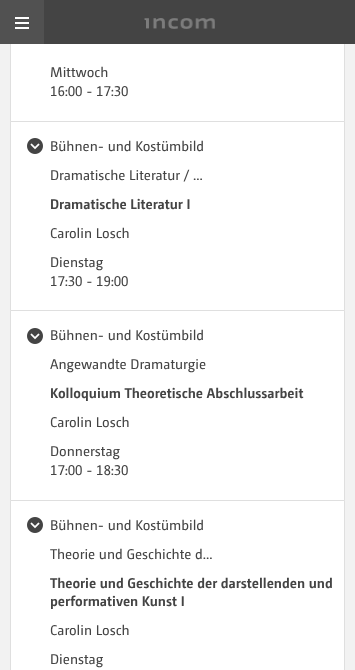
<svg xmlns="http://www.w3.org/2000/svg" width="355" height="670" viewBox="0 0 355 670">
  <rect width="100%" height="100%" fill="#f2f2f2"/>
  <path d="M11 44h333v77H11z" fill="#fff"/>
  <path d="M10.5 -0.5h334v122H10.5z" fill="none" stroke="#dfdfdf"/>
  <path d="M44 0h311v44H44z" fill="#444"/>
  <path d="M0 0h44v44H0z" fill="#515151"/>
  <image x="15" y="17" width="14" height="12" href="img/1.png"/>
  <image x="144" y="18" width="71" height="11" href="img/2.png"/>
  <path d="M10.5 121.5h334v189H10.5z" fill="#fff" stroke="#dfdfdf"/>
  <image x="27" y="138" width="16" height="16" href="img/3.png"/>
  <path d="M10.5 310.5h334v190H10.5z" fill="#fff" stroke="#dfdfdf"/>
  <image x="27" y="328" width="16" height="16" href="img/3.png"/>
  <path d="M10.5 500.5h334v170H10.5z" fill="#fff" stroke="#dfdfdf"/>
  <image x="27" y="517" width="16" height="16" href="img/3.png"/>
  <g font-family="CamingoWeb" font-size="14" fill="#444">
    <text x="50" y="77">Mittwoch</text>
    <text x="50" y="96">16:00 - 17:30</text>
    <text x="50" y="151">Bühnen- und Kostümbild</text>
    <text x="50" y="180">Dramatische Literatur / ...</text>
  </g>
  <text x="50" y="209" font-family="CamingoWeb" font-size="14" font-weight="bold" fill="#444">Dramatische Literatur I</text>
  <g font-family="CamingoWeb" font-size="14" fill="#444">
    <text x="50" y="238">Carolin Losch</text>
    <text x="50" y="267">Dienstag</text>
    <text x="50" y="286">17:30 - 19:00</text>
    <text x="50" y="340">Bühnen- und Kostümbild</text>
    <text x="50" y="369">Angewandte Dramaturgie</text>
  </g>
  <text x="50" y="398" font-family="CamingoWeb" font-size="14" font-weight="bold" fill="#444">Kolloquium Theoretische Abschlussarbeit</text>
  <g font-family="CamingoWeb" font-size="14" fill="#444">
    <text x="50" y="427">Carolin Losch</text>
    <text x="50" y="456">Donnerstag</text>
    <text x="50" y="475">17:00 - 18:30</text>
    <text x="50" y="530">Bühnen- und Kostümbild</text>
    <text x="50" y="559">Theorie und Geschichte d...</text>
  </g>
  <g font-family="CamingoWeb" font-size="14" font-weight="bold" fill="#444">
    <text x="50" y="588">Theorie und Geschichte der darstellenden und</text>
    <text x="50" y="606">performativen Kunst I</text>
  </g>
  <g font-family="CamingoWeb" font-size="14" fill="#444">
    <text x="50" y="635">Carolin Losch</text>
    <text x="50" y="664">Dienstag</text>
  </g>
</svg>
